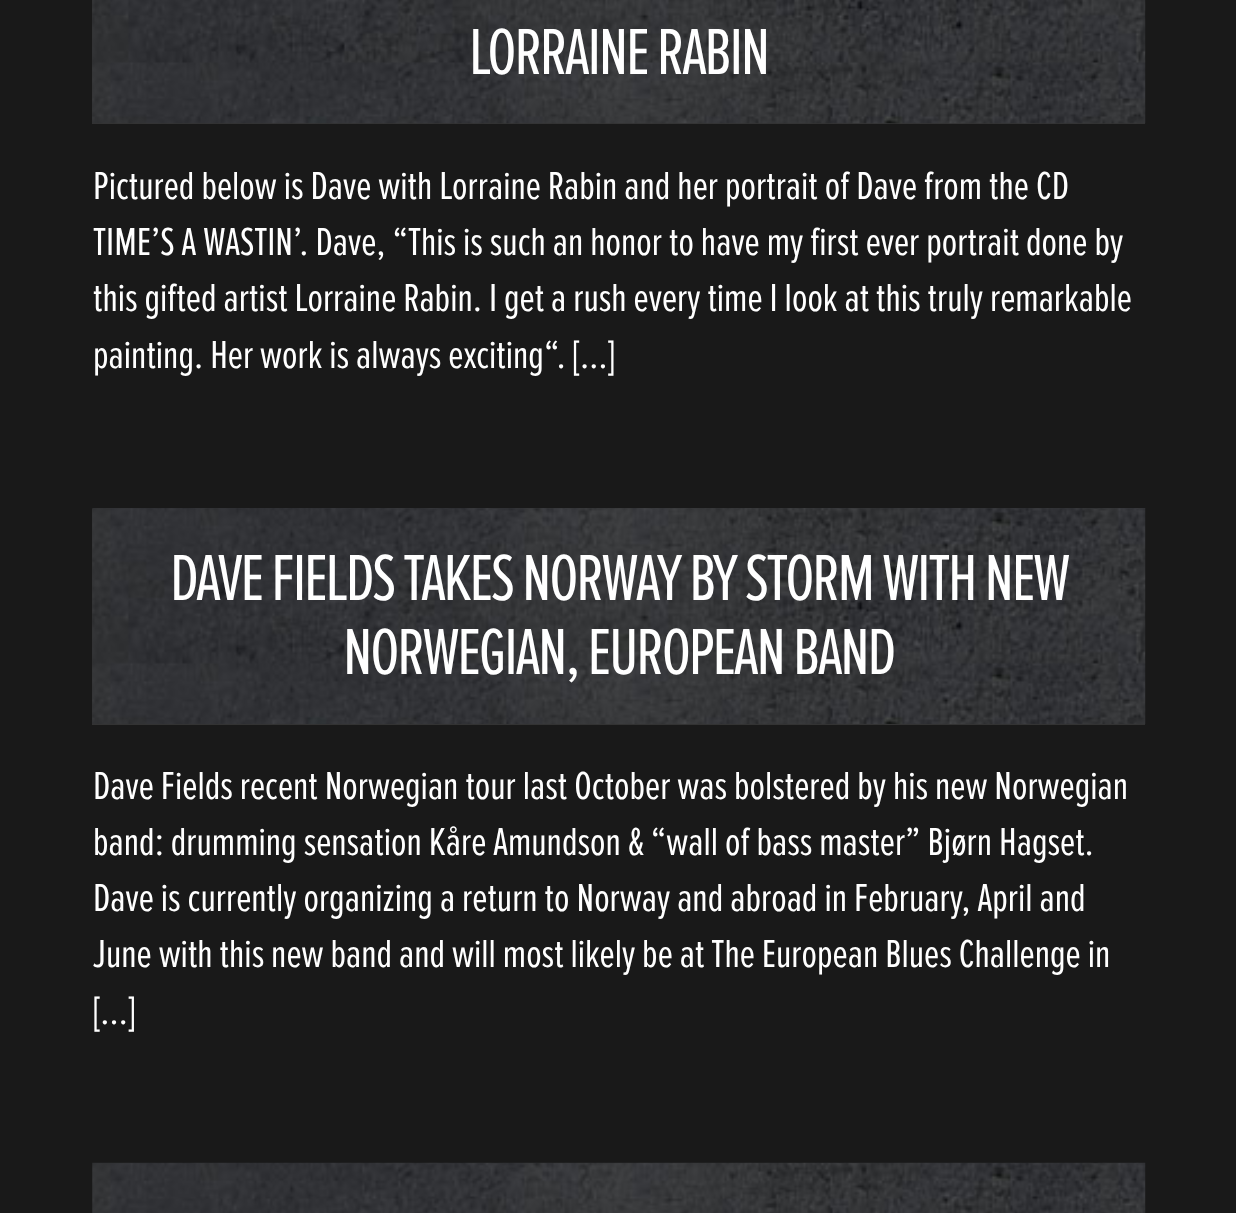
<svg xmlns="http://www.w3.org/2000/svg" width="1236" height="1213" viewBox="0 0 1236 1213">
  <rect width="100%" height="100%" fill="#191919"/>
  <path d="M92 0h1053v124H92z" fill="#333"/>
  <image x="92" y="0" width="1054" height="124" href="img/1.png"/>
  <path d="M92 509h1053v216H92z" fill="#333"/>
  <image x="92" y="508" width="1054" height="216" href="img/2.png"/>
  <image x="92" y="1162" width="1054" height="51" href="img/3.png"/>
  <text x="469" y="74" font-family="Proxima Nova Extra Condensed" font-size="67.5" letter-spacing="-2.25" fill="#fff">LORRAINE RABIN</text>
  <g font-family="Proxima Nova Extra Condensed" font-size="40.5" fill="#fff">
    <text x="93" y="199">Pictured below is Dave with Lorraine Rabin and her portrait of Dave from the CD</text>
    <text x="93" y="255">TIME’S A WASTIN’. Dave, “This is such an honor to have my first ever portrait done by</text>
    <text x="93" y="311">this gifted artist Lorraine Rabin. I get a rush every time I look at this truly remarkable</text>
    <text x="93" y="368">painting. Her work is always exciting“. […]</text>
  </g>
  <g font-family="Proxima Nova Extra Condensed" font-size="67.5" letter-spacing="-2.25" fill="#fff">
    <text x="170" y="600">DAVE FIELDS TAKES NORWAY BY STORM WITH NEW</text>
    <text x="343" y="674">NORWEGIAN, EUROPEAN BAND</text>
  </g>
  <g font-family="Proxima Nova Extra Condensed" font-size="40.5" fill="#fff">
    <text x="93" y="799">Dave Fields recent Norwegian tour last October was bolstered by his new Norwegian</text>
    <text x="93" y="855">band: drumming sensation Kåre Amundson &amp; “wall of bass master” Bjørn Hagset.</text>
    <text x="93" y="911">Dave is currently organizing a return to Norway and abroad in February, April and</text>
    <text x="93" y="967">June with this new band and will most likely be at The European Blues Challenge in</text>
    <text x="93" y="1024">[…]</text>
  </g>
</svg>
